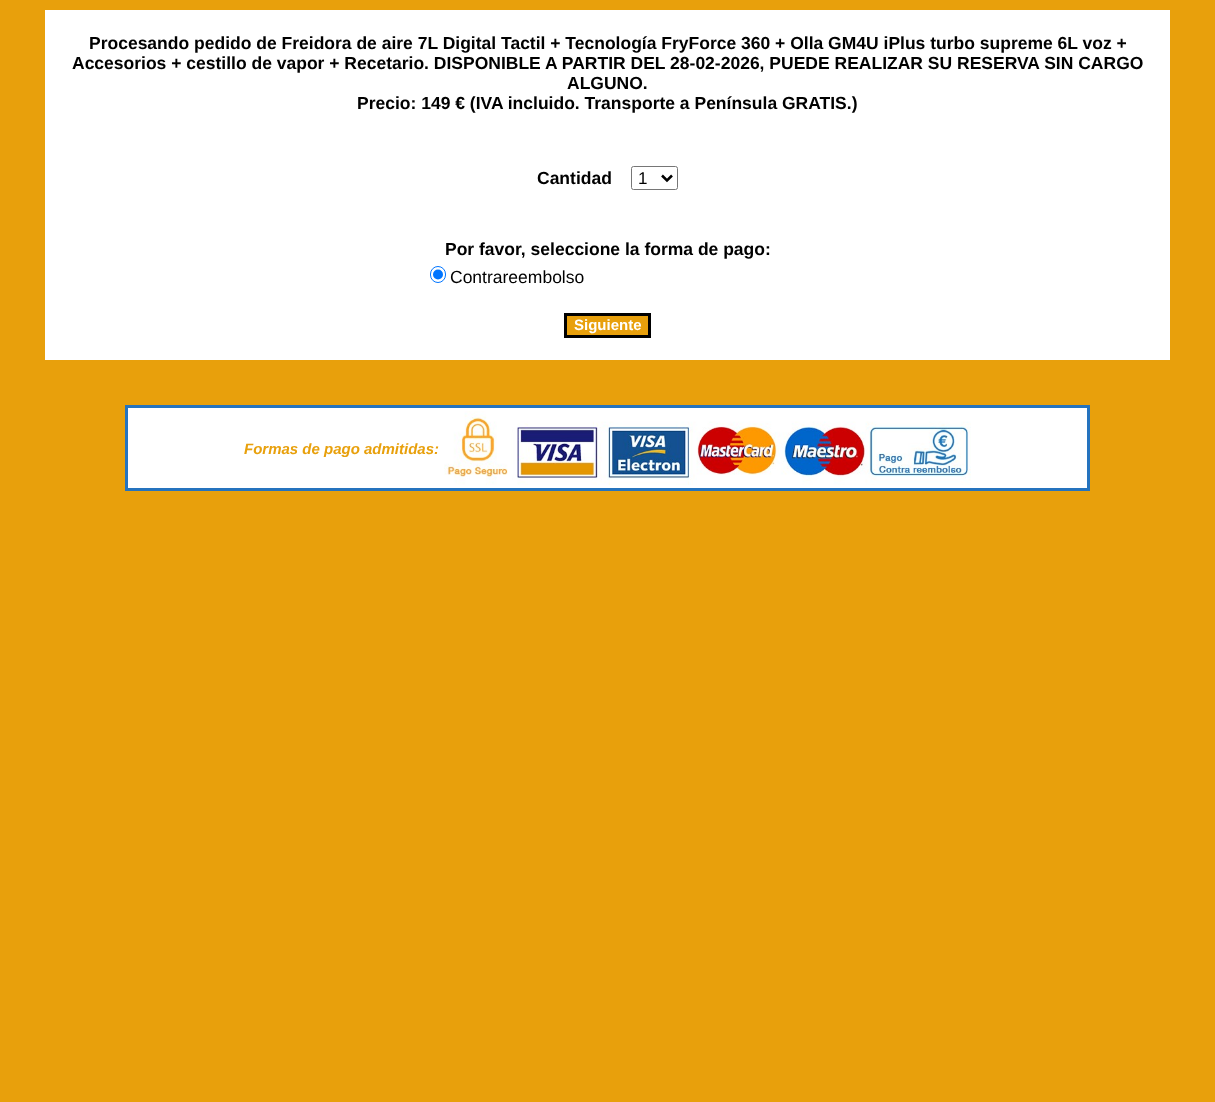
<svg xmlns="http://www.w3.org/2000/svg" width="1215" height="1102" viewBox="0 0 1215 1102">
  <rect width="100%" height="100%" fill="#e8a00c"/>
  <path d="M45 10h1125v350H45z" fill="#fff"/>
  <rect x="631.5" y="166.5" width="46" height="23" rx="2" fill="none" stroke="#767676"/>
  <path d="M662 175.5L667 180.5L672 175.5" fill="none" stroke="#000" stroke-width="2.5"/>
  <rect x="430.5" y="266.5" width="15" height="16" rx="7.5" fill="none" stroke="#0075ff"/>
  <circle cx="438" cy="274.5" r="5" fill="#0075ff"/>
  <path d="M565.5 314.5h84v22H565.5z" fill="#e8a00c" stroke="#000" stroke-width="3"/>
  <path d="M126.5 406.5h962v83H126.5z" fill="#fff" stroke="#2573be" stroke-width="3"/>
  <image x="444" y="411" width="527" height="74" href="img/1.png"/>
  <g font-family="Liberation Sans" font-size="17.5" font-weight="bold" fill="#000">
    <text x="89" y="49">Procesando pedido de Freidora de aire 7L Digital Tactil + Tecnología FryForce 360 + Olla GM4U iPlus turbo supreme 6L voz +</text>
    <text x="72" y="69">Accesorios + cestillo de vapor + Recetario. DISPONIBLE A PARTIR DEL 28-02-2026, PUEDE REALIZAR SU RESERVA SIN CARGO</text>
    <text x="567" y="89">ALGUNO.</text>
    <text x="357" y="109">Precio: 149 € (IVA incluido. Transporte a Península GRATIS.)</text>
    <text x="537" y="184">Cantidad</text>
  </g>
  <text x="638" y="184" font-family="Liberation Sans" font-size="17" fill="#000">1</text>
  <text x="445" y="255" font-family="Liberation Sans" font-size="17.5" font-weight="bold" fill="#000">Por favor, seleccione la forma de pago:</text>
  <text x="450" y="283" font-family="Liberation Sans" font-size="17.5" fill="#000">Contrareembolso</text>
  <text x="574" y="330" font-family="Liberation Sans" font-size="15" font-weight="bold" fill="#fff">Siguiente</text>
  <text x="244" y="454" font-family="Liberation Sans" font-size="15" font-weight="bold" font-style="italic" fill="#e8a00c">Formas de pago admitidas:</text>
</svg>
